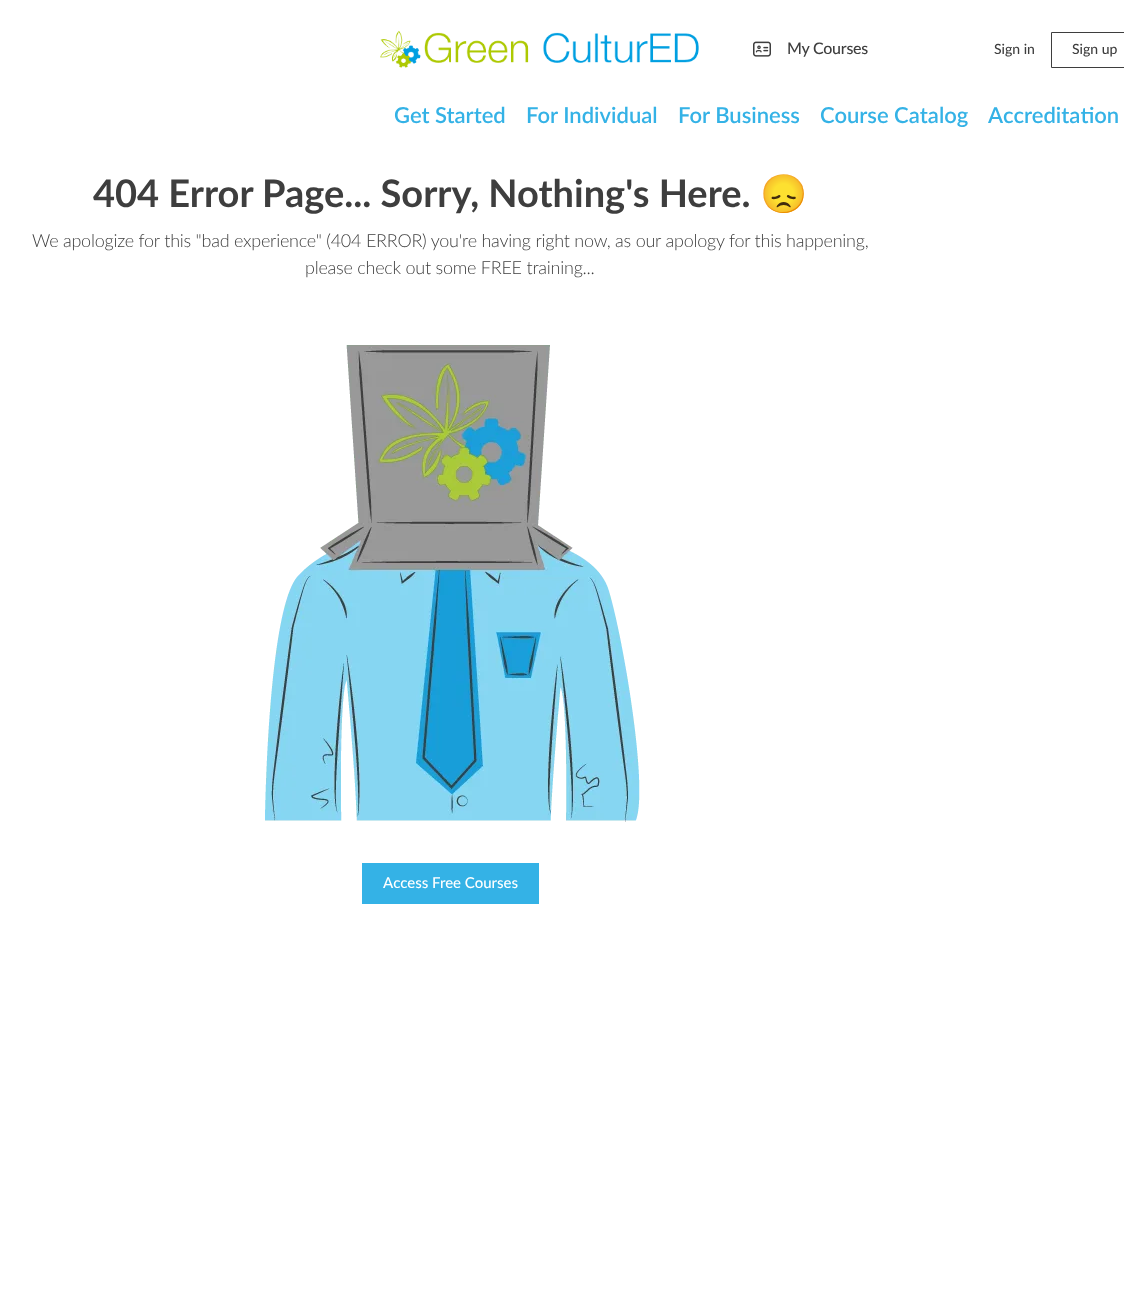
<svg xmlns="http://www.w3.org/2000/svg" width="1124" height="1309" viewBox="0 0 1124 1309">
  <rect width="100%" height="100%" fill="#fff"/>
  <image x="380" y="30" width="319" height="38" href="img/1.png"/>
  <image x="753" y="41" width="18" height="16" href="img/2.png"/>
  <path d="M1051.5 32.5h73v35H1051.5z" fill="none" stroke="#3e3e3e"/>
  <image x="265" y="345" width="375" height="477" href="img/3.png"/>
  <path d="M362 863h177v41H362z" fill="#34b2e6"/>
  <text x="787" y="54" font-family="Lato" font-size="16" font-weight="500" letter-spacing="-0.24" fill="#3e3e3e">My Courses</text>
  <g font-family="Lato" font-size="14" font-weight="500" fill="#3e3e3e">
    <text x="994" y="54">Sign in</text>
    <text x="1072" y="54">Sign up</text>
  </g>
  <g font-family="Lato" font-size="22" font-weight="600" fill="#34b2e6">
    <text x="394" y="123">Get Started</text>
    <text x="526" y="123">For Individual</text>
    <text x="678" y="123">For Business</text>
    <text x="820" y="123">Course Catalog</text>
    <text x="988" y="123">Accreditation</text>
  </g>
  <text x="93" y="207" font-family="Lato" font-size="38" font-weight="bold" fill="#3e3e3e">404 Error Page... Sorry, Nothing's Here.</text>
  <text x="760" y="207" font-family="Noto Color Emoji" font-size="38" font-weight="bold" fill="#3e3e3e">😞</text>
  <g font-family="Lato" font-size="18" font-weight="300" letter-spacing="-0.24" fill="#3e3e3e">
    <text x="32" y="247">We apologize for this "bad experience" (404 ERROR) you're having right now, as our apology for this happening,</text>
    <text x="305" y="274">please check out some FREE training...</text>
  </g>
  <text x="383" y="888" font-family="Lato" font-size="15" font-weight="500" fill="#fff">Access Free Courses</text>
</svg>
